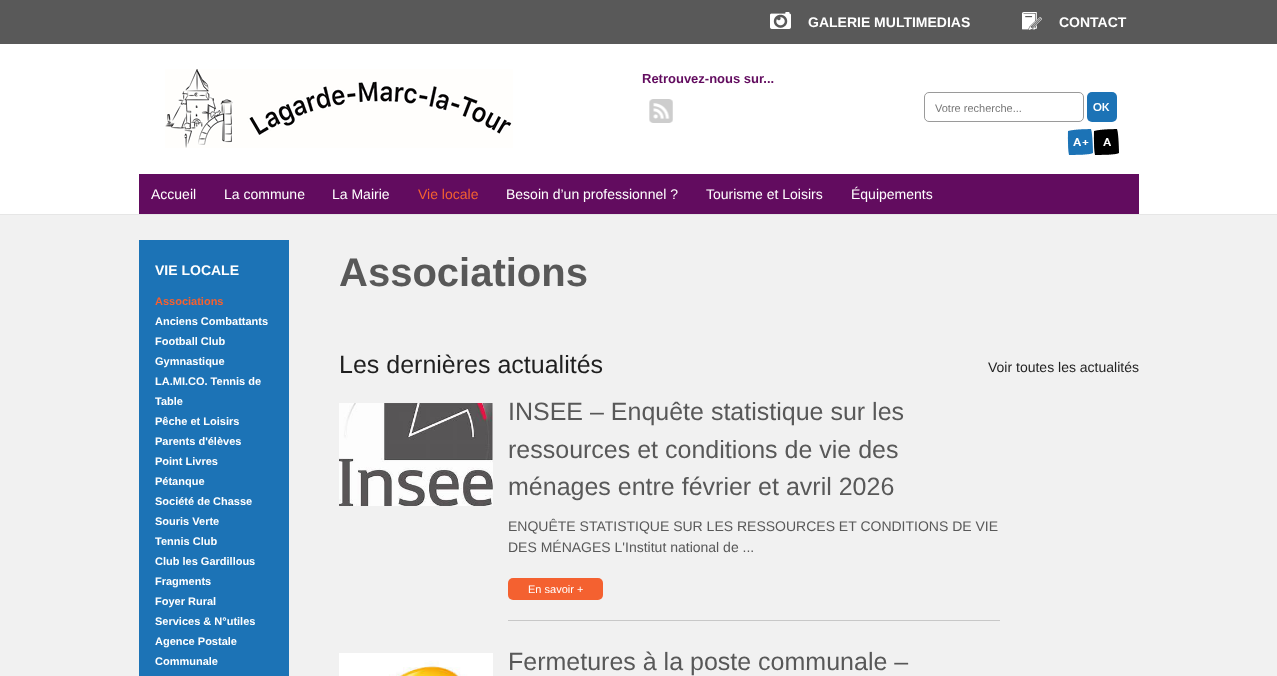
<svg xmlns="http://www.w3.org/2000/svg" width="1277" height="676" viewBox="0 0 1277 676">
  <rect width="100%" height="100%" fill="#fff"/>
  <path d="M0 0h1277v44H0z" fill="#595959"/>
  <image x="770" y="12" width="21" height="17" href="img/1.png"/>
  <image x="1022" y="12" width="20" height="18" href="img/2.png"/>
  <image x="165" y="69" width="348" height="79" href="img/3.png"/>
  <image x="649" y="99" width="24" height="24" href="img/4.png"/>
  <rect x="924.5" y="92.5" width="159" height="29" rx="4.5" fill="none" stroke="#9a9a9a"/>
  <rect x="1087" y="92" width="30" height="30" rx="5" fill="#1c73b6"/>
  <image x="1067" y="129" width="26" height="26" href="img/5.png"/>
  <image x="1093" y="129" width="26" height="26" href="img/6.png"/>
  <path d="M139 174h1000v40H139z" fill="#620c5f"/>
  <path d="M0 215h1277v461H0z" fill="#f1f1f1"/>
  <path d="M0 214h1277v1H0z" fill="#e6e6e6"/>
  <path d="M139 240h150v436H139z" fill="#1c73b6"/>
  <image x="339" y="403" width="154" height="103" href="img/7.png"/>
  <path d="M508 620h492v1H508z" fill="#c8c8c8"/>
  <rect x="508" y="578" width="95" height="22" rx="5" fill="#f46130"/>
  <image x="339" y="653" width="154" height="23" href="img/8.png"/>
  <g font-family="Liberation Sans" font-size="14" font-weight="bold" fill="#fff">
    <text x="808" y="27">GALERIE MULTIMEDIAS</text>
    <text x="1059" y="27">CONTACT</text>
  </g>
  <text x="642" y="83" font-family="Liberation Sans" font-size="13" font-weight="bold" fill="#620c5f">Retrouvez-nous sur...</text>
  <text x="935" y="112" font-family="Liberation Sans" font-size="11" fill="#787878">Votre recherche...</text>
  <text x="1093" y="111" font-family="Lato" font-size="11" font-weight="bold" fill="#fff">OK</text>
  <g font-family="Liberation Sans" font-size="14" fill="#fff">
    <text x="151" y="199">Accueil</text>
    <text x="224" y="199">La commune</text>
    <text x="332" y="199">La Mairie</text>
  </g>
  <text x="418" y="199" font-family="Liberation Sans" font-size="14" fill="#f46130">Vie locale</text>
  <g font-family="Liberation Sans" font-size="14" fill="#fff">
    <text x="506" y="199">Besoin d’un professionnel ?</text>
    <text x="706" y="199">Tourisme et Loisirs</text>
    <text x="851" y="199">Équipements</text>
  </g>
  <text x="155" y="275" font-family="Liberation Sans" font-size="14" font-weight="bold" fill="#fff">VIE LOCALE</text>
  <text x="155" y="305" font-family="Liberation Sans" font-size="11" font-weight="bold" fill="#f46130">Associations</text>
  <g font-family="Liberation Sans" font-size="11" font-weight="bold" fill="#fff">
    <text x="155" y="325">Anciens Combattants</text>
    <text x="155" y="345">Football Club</text>
    <text x="155" y="365">Gymnastique</text>
    <text x="155" y="385">LA.MI.CO. Tennis de</text>
    <text x="155" y="405">Table</text>
    <text x="155" y="425">Pêche et Loisirs</text>
    <text x="155" y="445">Parents d'élèves</text>
    <text x="155" y="465">Point Livres</text>
    <text x="155" y="485">Pétanque</text>
    <text x="155" y="505">Société de Chasse</text>
    <text x="155" y="525">Souris Verte</text>
    <text x="155" y="545">Tennis Club</text>
    <text x="155" y="565">Club les Gardillous</text>
    <text x="155" y="585">Fragments</text>
    <text x="155" y="605">Foyer Rural</text>
    <text x="155" y="625">Services &amp; N°utiles</text>
    <text x="155" y="645">Agence Postale</text>
    <text x="155" y="665">Communale</text>
  </g>
  <text x="339" y="286" font-family="Liberation Sans" font-size="40" font-weight="bold" fill="#585858">Associations</text>
  <text x="339" y="373" font-family="Liberation Sans" font-size="25" fill="#1f1f1f">Les dernières actualités</text>
  <text x="988" y="372" font-family="Liberation Sans" font-size="14" fill="#1f1f1f">Voir toutes les actualités</text>
  <g font-family="Liberation Sans" font-size="25" fill="#585858">
    <text x="508" y="420">INSEE – Enquête statistique sur les</text>
    <text x="508" y="458">ressources et conditions de vie des</text>
    <text x="508" y="495">ménages entre février et avril 2026</text>
  </g>
  <g font-family="Liberation Sans" font-size="14" fill="#585858">
    <text x="508" y="531">ENQUÊTE STATISTIQUE SUR LES RESSOURCES ET CONDITIONS DE VIE</text>
    <text x="508" y="552">DES MÉNAGES L'Institut national de ...</text>
  </g>
  <text x="528" y="593" font-family="Liberation Sans" font-size="11" fill="#fff">En savoir +</text>
  <text x="508" y="670" font-family="Liberation Sans" font-size="25" fill="#585858">Fermetures à la poste communale –</text>
</svg>
